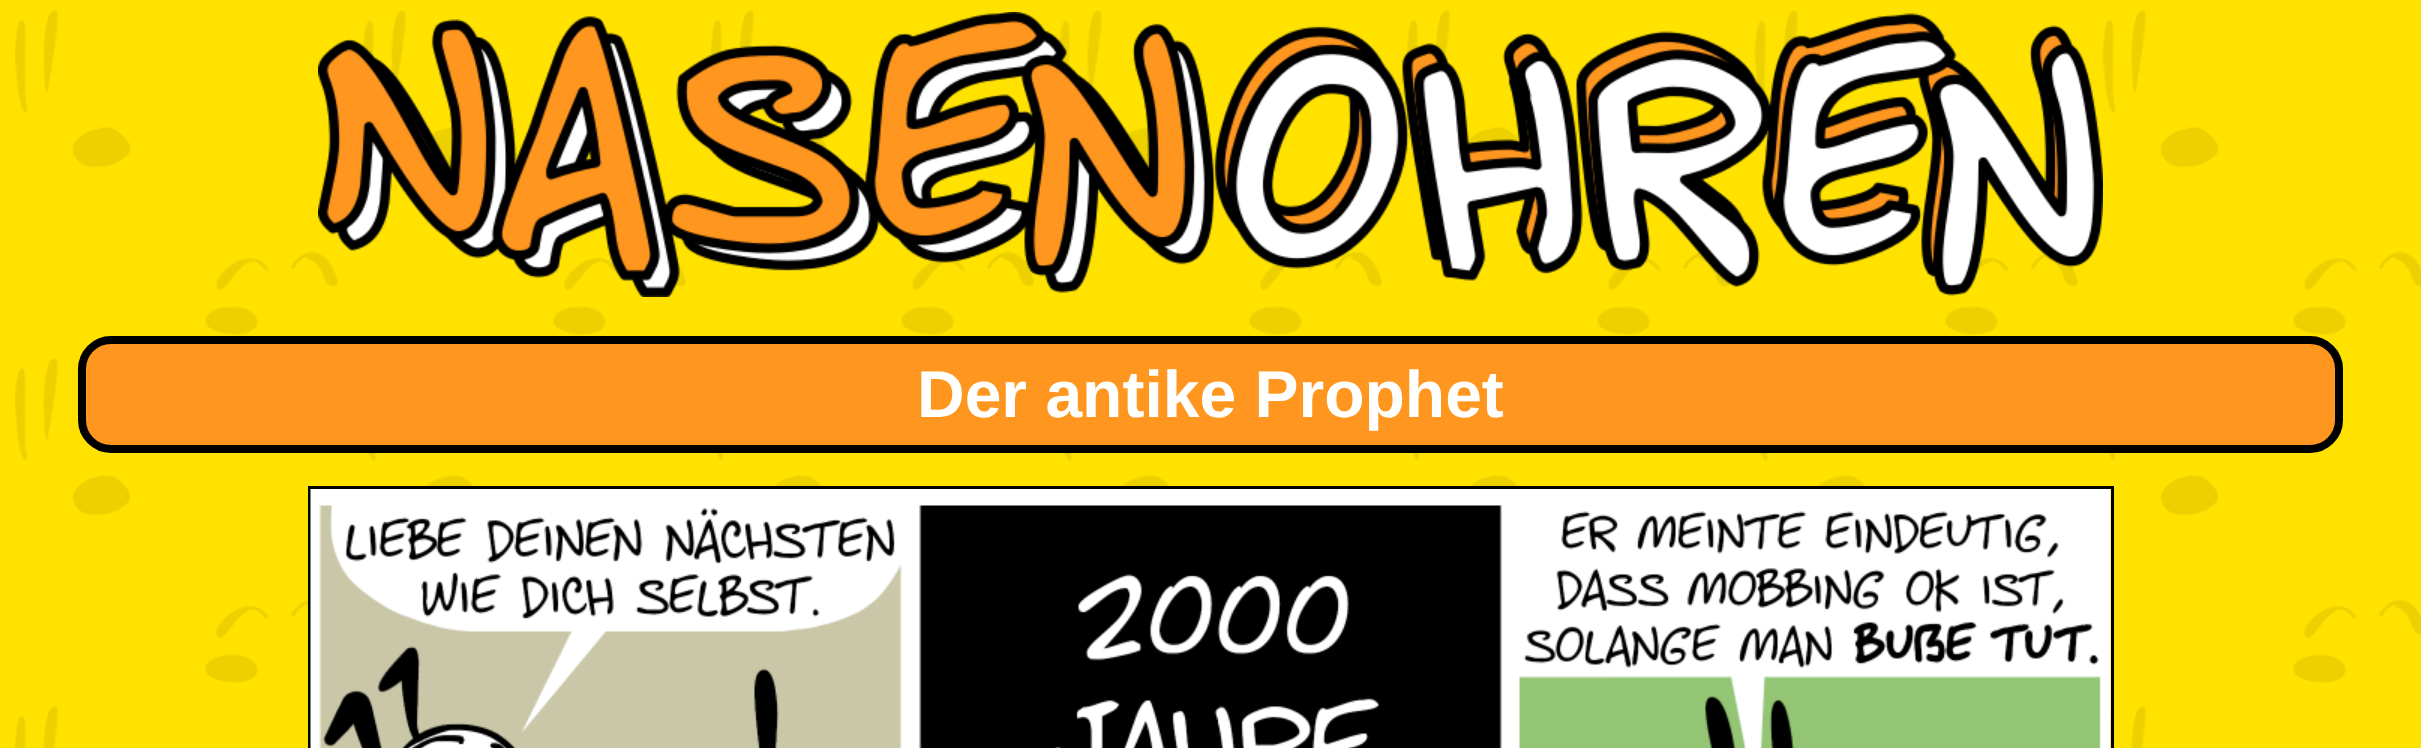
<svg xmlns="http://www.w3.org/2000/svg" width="2421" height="748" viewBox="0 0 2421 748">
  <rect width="100%" height="100%" fill="#ffe200"/>
  <image x="15" y="10" width="2406" height="738" href="img/1.png"/>
  <image x="318" y="12" width="1785" height="285" href="img/2.png"/>
  <rect x="82" y="340" width="2257" height="109" rx="29" fill="#ff961f" stroke="#000" stroke-width="8"/>
  <path d="M309.5 487.5h1803v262H309.5z" fill="none" stroke="#000" stroke-width="3"/>
  <image x="310" y="489" width="1801" height="259" href="img/3.png"/>
  <text x="917" y="417" font-family="Liberation Sans" font-size="66" font-weight="bold" fill="#fff">Der antike Prophet</text>
</svg>
